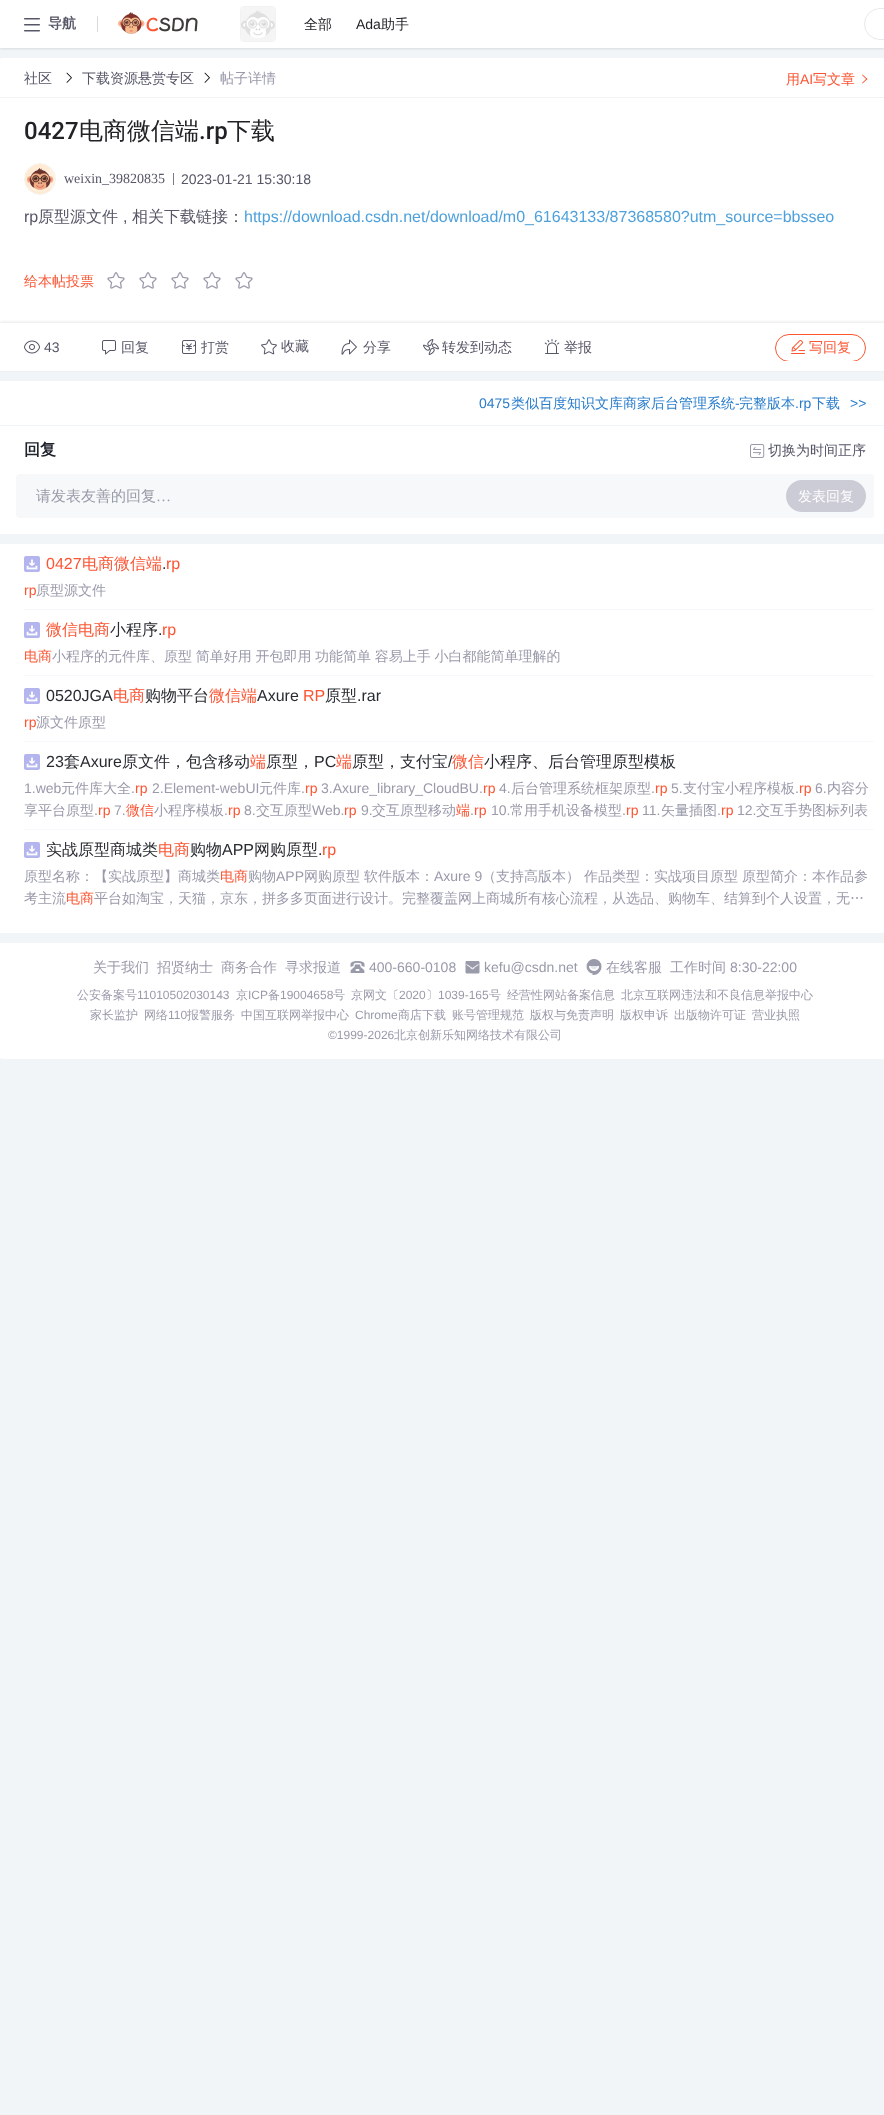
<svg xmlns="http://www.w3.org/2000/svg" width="884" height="2115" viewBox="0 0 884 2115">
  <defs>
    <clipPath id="clip1"><rect x="865" y="9" width="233" height="30" rx="15"/></clipPath>
    <clipPath id="clip2"><path d="M0 333h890v28H0z"/></clipPath>
  </defs>
  <rect width="100%" height="100%" fill="#f2f5f7"/>
  <path d="M0 1h884v48H0z" fill="#0000001a" filter="blur(1px)"/>
  <path d="M0 0h884v48H0z" fill="#fff"/>
  <image x="24" y="18" width="16" height="14" href="img/1.png"/>
  <rect x="97" y="16" width="1" height="16" rx="0.5" fill="#d8d8d8"/>
  <image x="118" y="12" width="80" height="22" href="img/2.png"/>
  <rect x="240.5" y="6.5" width="35" height="35" rx="3.5" fill="none" stroke="#f2f2f2"/>
  <image x="241" y="7" width="34" height="34" href="img/3.png"/>
  <rect x="864.5" y="8.5" width="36" height="31" rx="15.5" fill="none" stroke="#e8e8ed"/>
  <g clip-path="url(#clip1)">
    <path d="M877 9h7v30H877z" fill="#fff"/>
  </g>
  <path d="M2 58H884C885 58 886 59 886 60V98H0V60C0 59 1 58 2 58Z" fill="#fff"/>
  <path d="M0 97h884v1H0z" fill="#f2f2f2"/>
  <image x="66" y="72" width="6" height="11" href="img/4.png"/>
  <image x="204" y="72" width="6" height="11" href="img/4.png"/>
  <path d="M862 75L862.5 74.5L867.5 79L866.5 79.5Z" fill="#fc5531"/>
  <path d="M862 83L866.5 78.5L867.5 79L862.5 83.5Z" fill="#fc5531"/>
  <path d="M0 98h884v225H0z" fill="#fff"/>
  <circle cx="40" cy="179" r="15.5" fill="none" stroke="#f2f2f2"/>
  <image x="25" y="164" width="30" height="30" href="img/5.png"/>
  <path d="M173 173h1v12H173z" fill="#777888"/>
  <image x="107" y="272" width="18" height="17" href="img/6.png"/>
  <image x="139" y="272" width="18" height="17" href="img/6.png"/>
  <image x="171" y="272" width="18" height="17" href="img/6.png"/>
  <image x="203" y="272" width="18" height="17" href="img/6.png"/>
  <image x="235" y="272" width="18" height="17" href="img/6.png"/>
  <path d="M0 322h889v48H0z" fill="#1212121a" filter="blur(1.5px)"/>
  <path d="M0 323h884v48H0z" fill="#fff"/>
  <image x="24" y="340" width="16" height="14" href="img/7.png"/>
  <image x="102" y="340" width="14" height="15" href="img/8.png"/>
  <image x="182" y="340" width="14" height="14" href="img/9.png"/>
  <image x="261" y="339" width="16" height="16" href="img/10.png"/>
  <image x="341" y="339" width="16" height="16" href="img/11.png"/>
  <image x="423" y="339" width="16" height="16" href="img/12.png"/>
  <image x="544" y="339" width="16" height="15" href="img/13.png"/>
  <g clip-path="url(#clip2)">
    <rect x="775.5" y="334.5" width="90" height="27" rx="13.5" fill="none" stroke="#fc5531"/>
  </g>
  <image x="791" y="339" width="14" height="15" href="img/14.png"/>
  <path d="M0 381h884v44H0z" fill="#fff"/>
  <path d="M0 426h884v108H0z" fill="#fff"/>
  <image x="750" y="444" width="15" height="14" href="img/15.png"/>
  <rect x="16" y="474" width="858" height="44" rx="4" fill="#f7f8f9"/>
  <rect x="786" y="480" width="80" height="32" rx="16" fill="#ccccd7"/>
  <path d="M0 544h884v389H0z" fill="#fff"/>
  <path d="M24 609h850v1H24z" fill="#f7f7fc"/>
  <image x="24" y="556" width="16" height="16" href="img/16.png"/>
  <path d="M24 675h850v1H24z" fill="#f7f7fc"/>
  <image x="24" y="622" width="16" height="16" href="img/16.png"/>
  <path d="M24 741h850v1H24z" fill="#f7f7fc"/>
  <image x="24" y="688" width="16" height="16" href="img/16.png"/>
  <path d="M24 829h850v1H24z" fill="#f7f7fc"/>
  <image x="24" y="754" width="16" height="16" href="img/16.png"/>
  <image x="24" y="842" width="16" height="16" href="img/16.png"/>
  <path d="M0 943H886V1057C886 1058 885 1059 884 1059H2C1 1059 0 1058 0 1057Z" fill="#fff"/>
  <image x="350" y="961" width="15" height="12" href="img/17.png"/>
  <image x="465" y="961" width="15" height="13" href="img/18.png"/>
  <image x="586" y="959" width="16" height="16" href="img/19.png"/>
  <text x="48" y="28" font-family="WenQuanYi Zen Hei" font-size="14" font-weight="bold" fill="#555666">导航</text>
  <text x="304" y="29" font-family="WenQuanYi Zen Hei" font-size="14" font-weight="500" fill="#222226">全部</text>
  <text x="356" y="29" font-family="Liberation Sans" font-size="14" fill="#222226">Ada</text>
  <text x="381" y="29" font-family="WenQuanYi Zen Hei" font-size="14" font-weight="500" fill="#222226">助手</text>
  <g font-family="WenQuanYi Zen Hei" font-size="14" font-weight="500" fill="#555666">
    <text x="24" y="83">社区</text>
    <text x="82" y="83">下载资源悬赏专区</text>
  </g>
  <text x="220" y="83" font-family="WenQuanYi Zen Hei" font-size="14" font-weight="500" fill="#999aaa">帖子详情</text>
  <text x="786" y="84" font-family="WenQuanYi Zen Hei" font-size="14" font-weight="500" fill="#fc5533">用</text>
  <text x="800" y="84" font-family="Liberation Sans" font-size="14" fill="#fc5533">AI</text>
  <text x="813" y="84" font-family="WenQuanYi Zen Hei" font-size="14" font-weight="500" fill="#fc5533">写文章</text>
  <text x="24" y="139" font-family="Roboto" font-size="24" font-weight="500" fill="#222226">0427</text>
  <text x="79" y="139" font-family="WenQuanYi Zen Hei" font-size="24" font-weight="500" fill="#222226">电商微信端</text>
  <text x="199" y="139" font-family="Roboto" font-size="24" font-weight="500" fill="#222226">.rp</text>
  <text x="227" y="139" font-family="WenQuanYi Zen Hei" font-size="24" font-weight="500" fill="#222226">下载</text>
  <text x="64" y="183" font-family="Liberation Serif" font-size="14" fill="#555666">weixin_39820835</text>
  <text x="181" y="184" font-family="Liberation Sans" font-size="14" fill="#555666">2023-01-21 15:30:18</text>
  <text x="24" y="222" font-family="Liberation Sans" font-size="16" fill="#555666">rp</text>
  <text x="38" y="222" font-family="WenQuanYi Zen Hei" font-size="16" font-weight="500" fill="#555666">原型源文件</text>
  <text x="123" y="222" font-family="Liberation Sans" font-size="16" fill="#555666">,</text>
  <text x="132" y="222" font-family="WenQuanYi Zen Hei" font-size="16" font-weight="500" fill="#555666">相关下载链接：</text>
  <text x="244" y="222" font-family="Liberation Sans" font-size="16" fill="#4ea1db">https://download.csdn.net/download/m0_61643133/87368580?utm_source=bbsseo</text>
  <text x="24" y="286" font-family="WenQuanYi Zen Hei" font-size="14" font-weight="500" fill="#fc5533">给本帖投票</text>
  <text x="44" y="352" font-family="Liberation Sans" font-size="14" fill="#555666">43</text>
  <g font-family="WenQuanYi Zen Hei" font-size="14" font-weight="500" fill="#555666">
    <text x="121" y="352">回复</text>
    <text x="201" y="352">打赏</text>
    <text x="281" y="351">收藏</text>
    <text x="363" y="352">分享</text>
    <text x="442" y="352">转发到动态</text>
    <text x="564" y="352">举报</text>
  </g>
  <text x="809" y="352" font-family="WenQuanYi Zen Hei" font-size="14" font-weight="500" fill="#fc5533">写回复</text>
  <text x="479" y="408" font-family="Liberation Sans" font-size="14" fill="#277ccc">0475</text>
  <text x="511" y="408" font-family="WenQuanYi Zen Hei" font-size="14" font-weight="500" fill="#277ccc">类似百度知识文库商家后台管理系统</text>
  <text x="735" y="408" font-family="Liberation Sans" font-size="14" fill="#277ccc">-</text>
  <text x="739" y="408" font-family="WenQuanYi Zen Hei" font-size="14" font-weight="500" fill="#277ccc">完整版本</text>
  <text x="795" y="408" font-family="Liberation Sans" font-size="14" fill="#277ccc">.rp</text>
  <text x="812" y="408" font-family="WenQuanYi Zen Hei" font-size="14" font-weight="500" fill="#277ccc">下载</text>
  <text x="850" y="408" font-family="Liberation Sans" font-size="14" fill="#277ccc">&gt;&gt;</text>
  <text x="24" y="455" font-family="WenQuanYi Zen Hei" font-size="16" font-weight="bold" fill="#20232c">回复</text>
  <text x="768" y="455" font-family="WenQuanYi Zen Hei" font-size="14" font-weight="500" fill="#555666">切换为时间正序</text>
  <text x="36" y="501" font-family="WenQuanYi Zen Hei" font-size="15" font-weight="500" fill="#999aaa">请发表友善的回复</text>
  <text x="156" y="501" font-family="Liberation Serif" font-size="15" fill="#999aaa">…</text>
  <text x="798" y="501" font-family="WenQuanYi Zen Hei" font-size="14" font-weight="500" fill="#fff">发表回复</text>
  <text x="46" y="569" font-family="Liberation Sans" font-size="16" fill="#fc5533">0427</text>
  <text x="82" y="569" font-family="WenQuanYi Zen Hei" font-size="16" font-weight="500" fill="#fc5533">电商微信端</text>
  <text x="162" y="569" font-family="Liberation Sans" font-size="16" fill="#282b31">.</text>
  <text x="166" y="569" font-family="Liberation Sans" font-size="16" fill="#fc5533">rp</text>
  <text x="24" y="595" font-family="Liberation Sans" font-size="14" fill="#fc5533">rp</text>
  <text x="36" y="595" font-family="WenQuanYi Zen Hei" font-size="14" font-weight="500" fill="#999aaa">原型源文件</text>
  <text x="46" y="635" font-family="WenQuanYi Zen Hei" font-size="16" font-weight="500" fill="#fc5533">微信电商</text>
  <text x="110" y="635" font-family="WenQuanYi Zen Hei" font-size="16" font-weight="500" fill="#282b31">小程序</text>
  <text x="158" y="635" font-family="Liberation Sans" font-size="16" fill="#282b31">.</text>
  <text x="162" y="635" font-family="Liberation Sans" font-size="16" fill="#fc5533">rp</text>
  <text x="24" y="661" font-family="WenQuanYi Zen Hei" font-size="14" font-weight="500" fill="#fc5533">电商</text>
  <text x="52" y="661" word-spacing="-0.5" font-family="WenQuanYi Zen Hei" font-size="14" font-weight="500" fill="#999aaa">小程序的元件库、原型 简单好用 开包即用 功能简单 容易上手 小白都能简单理解的</text>
  <text x="46" y="701" font-family="Liberation Sans" font-size="16" fill="#282b31">0520JGA</text>
  <text x="113" y="701" font-family="WenQuanYi Zen Hei" font-size="16" font-weight="500" fill="#fc5533">电商</text>
  <text x="145" y="701" font-family="WenQuanYi Zen Hei" font-size="16" font-weight="500" fill="#282b31">购物平台</text>
  <text x="209" y="701" font-family="WenQuanYi Zen Hei" font-size="16" font-weight="500" fill="#fc5533">微信端</text>
  <text x="257" y="701" font-family="Liberation Sans" font-size="16" fill="#282b31">Axure</text>
  <text x="303" y="701" font-family="Liberation Sans" font-size="16" fill="#fc5533">RP</text>
  <text x="325" y="701" font-family="WenQuanYi Zen Hei" font-size="16" font-weight="500" fill="#282b31">原型</text>
  <text x="357" y="701" font-family="Liberation Sans" font-size="16" fill="#282b31">.rar</text>
  <text x="24" y="727" font-family="Liberation Sans" font-size="14" fill="#fc5533">rp</text>
  <text x="36" y="727" font-family="WenQuanYi Zen Hei" font-size="14" font-weight="500" fill="#999aaa">源文件原型</text>
  <text x="46" y="767" font-family="Liberation Sans" font-size="16" fill="#282b31">23</text>
  <text x="64" y="767" font-family="WenQuanYi Zen Hei" font-size="16" font-weight="500" fill="#282b31">套</text>
  <text x="80" y="767" font-family="Liberation Sans" font-size="16" fill="#282b31">Axure</text>
  <text x="122" y="767" font-family="WenQuanYi Zen Hei" font-size="16" font-weight="500" fill="#282b31">原文件，包含移动</text>
  <text x="250" y="767" font-family="WenQuanYi Zen Hei" font-size="16" font-weight="500" fill="#fc5533">端</text>
  <text x="266" y="767" font-family="WenQuanYi Zen Hei" font-size="16" font-weight="500" fill="#282b31">原型，</text>
  <text x="314" y="767" font-family="Liberation Sans" font-size="16" fill="#282b31">PC</text>
  <text x="336" y="767" font-family="WenQuanYi Zen Hei" font-size="16" font-weight="500" fill="#fc5533">端</text>
  <text x="352" y="767" font-family="WenQuanYi Zen Hei" font-size="16" font-weight="500" fill="#282b31">原型，支付宝</text>
  <text x="448" y="767" font-family="Liberation Sans" font-size="16" fill="#282b31">/</text>
  <text x="452" y="767" font-family="WenQuanYi Zen Hei" font-size="16" font-weight="500" fill="#fc5533">微信</text>
  <text x="484" y="767" font-family="WenQuanYi Zen Hei" font-size="16" font-weight="500" fill="#282b31">小程序、后台管理原型模板</text>
  <text x="24" y="793" font-family="Liberation Sans" font-size="14" fill="#999aaa">1.web</text>
  <text x="61" y="793" font-family="WenQuanYi Zen Hei" font-size="14" font-weight="500" fill="#999aaa">元件库大全</text>
  <text x="131" y="793" font-family="Liberation Sans" font-size="14" fill="#999aaa">.</text>
  <text x="135" y="793" font-family="Liberation Sans" font-size="14" fill="#fc5533">rp</text>
  <text x="152" y="793" font-family="Liberation Sans" font-size="14" fill="#999aaa">2.Element-webUI</text>
  <text x="259" y="793" font-family="WenQuanYi Zen Hei" font-size="14" font-weight="500" fill="#999aaa">元件库</text>
  <text x="301" y="793" font-family="Liberation Sans" font-size="14" fill="#999aaa">.</text>
  <text x="305" y="793" font-family="Liberation Sans" font-size="14" fill="#fc5533">rp</text>
  <text x="321" y="793" font-family="Liberation Sans" font-size="14" fill="#999aaa">3.Axure_library_CloudBU.</text>
  <text x="483" y="793" font-family="Liberation Sans" font-size="14" fill="#fc5533">rp</text>
  <text x="499" y="793" font-family="Liberation Sans" font-size="14" fill="#999aaa">4.</text>
  <text x="511" y="793" font-family="WenQuanYi Zen Hei" font-size="14" font-weight="500" fill="#999aaa">后台管理系统框架原型</text>
  <text x="651" y="793" font-family="Liberation Sans" font-size="14" fill="#999aaa">.</text>
  <text x="655" y="793" font-family="Liberation Sans" font-size="14" fill="#fc5533">rp</text>
  <text x="671" y="793" font-family="Liberation Sans" font-size="14" fill="#999aaa">5.</text>
  <text x="683" y="793" font-family="WenQuanYi Zen Hei" font-size="14" font-weight="500" fill="#999aaa">支付宝小程序模板</text>
  <text x="795" y="793" font-family="Liberation Sans" font-size="14" fill="#999aaa">.</text>
  <text x="799" y="793" font-family="Liberation Sans" font-size="14" fill="#fc5533">rp</text>
  <text x="815" y="793" font-family="Liberation Sans" font-size="14" fill="#999aaa">6.</text>
  <g font-family="WenQuanYi Zen Hei" font-size="14" font-weight="500" fill="#999aaa">
    <text x="827" y="793">内容分</text>
    <text x="24" y="815">享平台原型</text>
  </g>
  <text x="94" y="815" font-family="Liberation Sans" font-size="14" fill="#999aaa">.</text>
  <text x="98" y="815" font-family="Liberation Sans" font-size="14" fill="#fc5533">rp</text>
  <text x="114" y="815" font-family="Liberation Sans" font-size="14" fill="#999aaa">7.</text>
  <text x="126" y="815" font-family="WenQuanYi Zen Hei" font-size="14" font-weight="500" fill="#fc5533">微信</text>
  <text x="154" y="815" font-family="WenQuanYi Zen Hei" font-size="14" font-weight="500" fill="#999aaa">小程序模板</text>
  <text x="224" y="815" font-family="Liberation Sans" font-size="14" fill="#999aaa">.</text>
  <text x="228" y="815" font-family="Liberation Sans" font-size="14" fill="#fc5533">rp</text>
  <text x="244" y="815" font-family="Liberation Sans" font-size="14" fill="#999aaa">8.</text>
  <text x="256" y="815" font-family="WenQuanYi Zen Hei" font-size="14" font-weight="500" fill="#999aaa">交互原型</text>
  <text x="312" y="815" font-family="Liberation Sans" font-size="14" fill="#999aaa">Web.</text>
  <text x="344" y="815" font-family="Liberation Sans" font-size="14" fill="#fc5533">rp</text>
  <text x="361" y="815" font-family="Liberation Sans" font-size="14" fill="#999aaa">9.</text>
  <text x="372" y="815" font-family="WenQuanYi Zen Hei" font-size="14" font-weight="500" fill="#999aaa">交互原型移动</text>
  <text x="456" y="815" font-family="WenQuanYi Zen Hei" font-size="14" font-weight="500" fill="#fc5533">端</text>
  <text x="470" y="815" font-family="Liberation Sans" font-size="14" fill="#999aaa">.</text>
  <text x="474" y="815" font-family="Liberation Sans" font-size="14" fill="#fc5533">rp</text>
  <text x="491" y="815" font-family="Liberation Sans" font-size="14" fill="#999aaa">10.</text>
  <text x="510" y="815" font-family="WenQuanYi Zen Hei" font-size="14" font-weight="500" fill="#999aaa">常用手机设备模型</text>
  <text x="622" y="815" font-family="Liberation Sans" font-size="14" fill="#999aaa">.</text>
  <text x="626" y="815" font-family="Liberation Sans" font-size="14" fill="#fc5533">rp</text>
  <text x="642" y="815" font-family="Liberation Sans" font-size="14" fill="#999aaa">11.</text>
  <text x="661" y="815" font-family="WenQuanYi Zen Hei" font-size="14" font-weight="500" fill="#999aaa">矢量插图</text>
  <text x="717" y="815" font-family="Liberation Sans" font-size="14" fill="#999aaa">.</text>
  <text x="721" y="815" font-family="Liberation Sans" font-size="14" fill="#fc5533">rp</text>
  <text x="737" y="815" font-family="Liberation Sans" font-size="14" fill="#999aaa">12.</text>
  <text x="756" y="815" font-family="WenQuanYi Zen Hei" font-size="14" font-weight="500" fill="#999aaa">交互手势图标列表</text>
  <text x="46" y="855" font-family="WenQuanYi Zen Hei" font-size="16" font-weight="500" fill="#282b31">实战原型商城类</text>
  <text x="158" y="855" font-family="WenQuanYi Zen Hei" font-size="16" font-weight="500" fill="#fc5533">电商</text>
  <text x="190" y="855" font-family="WenQuanYi Zen Hei" font-size="16" font-weight="500" fill="#282b31">购物</text>
  <text x="222" y="855" font-family="Liberation Sans" font-size="16" fill="#282b31">APP</text>
  <text x="254" y="855" font-family="WenQuanYi Zen Hei" font-size="16" font-weight="500" fill="#282b31">网购原型</text>
  <text x="318" y="855" font-family="Liberation Sans" font-size="16" fill="#282b31">.</text>
  <text x="322" y="855" font-family="Liberation Sans" font-size="16" fill="#fc5533">rp</text>
  <text x="24" y="881" font-family="WenQuanYi Zen Hei" font-size="14" font-weight="500" fill="#999aaa">原型名称：【实战原型】商城类</text>
  <text x="220" y="881" font-family="WenQuanYi Zen Hei" font-size="14" font-weight="500" fill="#fc5533">电商</text>
  <text x="248" y="881" font-family="WenQuanYi Zen Hei" font-size="14" font-weight="500" fill="#999aaa">购物</text>
  <text x="276" y="881" font-family="Liberation Sans" font-size="14" fill="#999aaa">APP</text>
  <g font-family="WenQuanYi Zen Hei" font-size="14" font-weight="500" fill="#999aaa">
    <text x="304" y="881">网购原型</text>
    <text x="364" y="881">软件版本：</text>
  </g>
  <text x="434" y="881" font-family="Liberation Sans" font-size="14" fill="#999aaa">Axure 9</text>
  <g font-family="WenQuanYi Zen Hei" font-size="14" font-weight="500" fill="#999aaa">
    <text x="482" y="881">（支持高版本）</text>
    <text x="584" y="881">作品类型：实战项目原型</text>
    <text x="742" y="881">原型简介：本作品参</text>
    <text x="24" y="903">考主流</text>
  </g>
  <text x="66" y="903" font-family="WenQuanYi Zen Hei" font-size="14" font-weight="500" fill="#fc5533">电商</text>
  <g font-family="WenQuanYi Zen Hei" font-size="14" font-weight="500" fill="#999aaa">
    <text x="94" y="903">平台如淘宝，天猫，京东，拼多多页面进行设计。完整覆盖网上商城所有核心流程，从选品、购物车、结算到个人设置，无…</text>
    <text x="93" y="972">关于我们</text>
    <text x="157" y="972">招贤纳士</text>
    <text x="221" y="972">商务合作</text>
    <text x="285" y="972">寻求报道</text>
  </g>
  <g font-family="Liberation Sans" font-size="14" fill="#999aaa">
    <text x="369" y="972">400-660-0108</text>
    <text x="484" y="972">kefu@csdn.net</text>
  </g>
  <g font-family="WenQuanYi Zen Hei" font-size="14" font-weight="500" fill="#999aaa">
    <text x="606" y="972">在线客服</text>
    <text x="670" y="972">工作时间</text>
  </g>
  <text x="730" y="972" font-family="Liberation Sans" font-size="14" fill="#999aaa">8:30-22:00</text>
  <text x="77" y="999" font-family="WenQuanYi Zen Hei" font-size="12" font-weight="500" fill="#999aaa">公安备案号</text>
  <text x="137" y="999" font-family="Liberation Sans" font-size="12" fill="#999aaa">11010502030143</text>
  <text x="236" y="999" font-family="WenQuanYi Zen Hei" font-size="12" font-weight="500" fill="#999aaa">京</text>
  <text x="248" y="999" font-family="Liberation Sans" font-size="12" fill="#999aaa">ICP</text>
  <text x="268" y="999" font-family="WenQuanYi Zen Hei" font-size="12" font-weight="500" fill="#999aaa">备</text>
  <text x="280" y="999" font-family="Liberation Sans" font-size="12" fill="#999aaa">19004658</text>
  <g font-family="WenQuanYi Zen Hei" font-size="12" font-weight="500" fill="#999aaa">
    <text x="333" y="999">号</text>
    <text x="351" y="999">京网文〔</text>
  </g>
  <text x="399" y="999" font-family="Liberation Sans" font-size="12" fill="#999aaa">2020</text>
  <text x="426" y="999" font-family="WenQuanYi Zen Hei" font-size="12" font-weight="500" fill="#999aaa">〕</text>
  <text x="438" y="999" font-family="Liberation Sans" font-size="12" fill="#999aaa">1039-165</text>
  <g font-family="WenQuanYi Zen Hei" font-size="12" font-weight="500" fill="#999aaa">
    <text x="489" y="999">号</text>
    <text x="507" y="999">经营性网站备案信息</text>
    <text x="621" y="999">北京互联网违法和不良信息举报中心</text>
    <text x="90" y="1019">家长监护</text>
    <text x="144" y="1019">网络</text>
  </g>
  <text x="168" y="1019" font-family="Liberation Sans" font-size="12" fill="#999aaa">110</text>
  <g font-family="WenQuanYi Zen Hei" font-size="12" font-weight="500" fill="#999aaa">
    <text x="187" y="1019">报警服务</text>
    <text x="241" y="1019">中国互联网举报中心</text>
  </g>
  <text x="355" y="1019" font-family="Liberation Sans" font-size="12" fill="#999aaa">Chrome</text>
  <g font-family="WenQuanYi Zen Hei" font-size="12" font-weight="500" fill="#999aaa">
    <text x="398" y="1019">商店下载</text>
    <text x="452" y="1019">账号管理规范</text>
    <text x="530" y="1019">版权与免责声明</text>
    <text x="620" y="1019">版权申诉</text>
    <text x="674" y="1019">出版物许可证</text>
    <text x="752" y="1019">营业执照</text>
  </g>
  <text x="328" y="1039" font-family="Liberation Sans" font-size="12" fill="#999aaa">©1999-2026</text>
  <text x="394" y="1039" font-family="WenQuanYi Zen Hei" font-size="12" font-weight="500" fill="#999aaa">北京创新乐知网络技术有限公司</text>
</svg>
